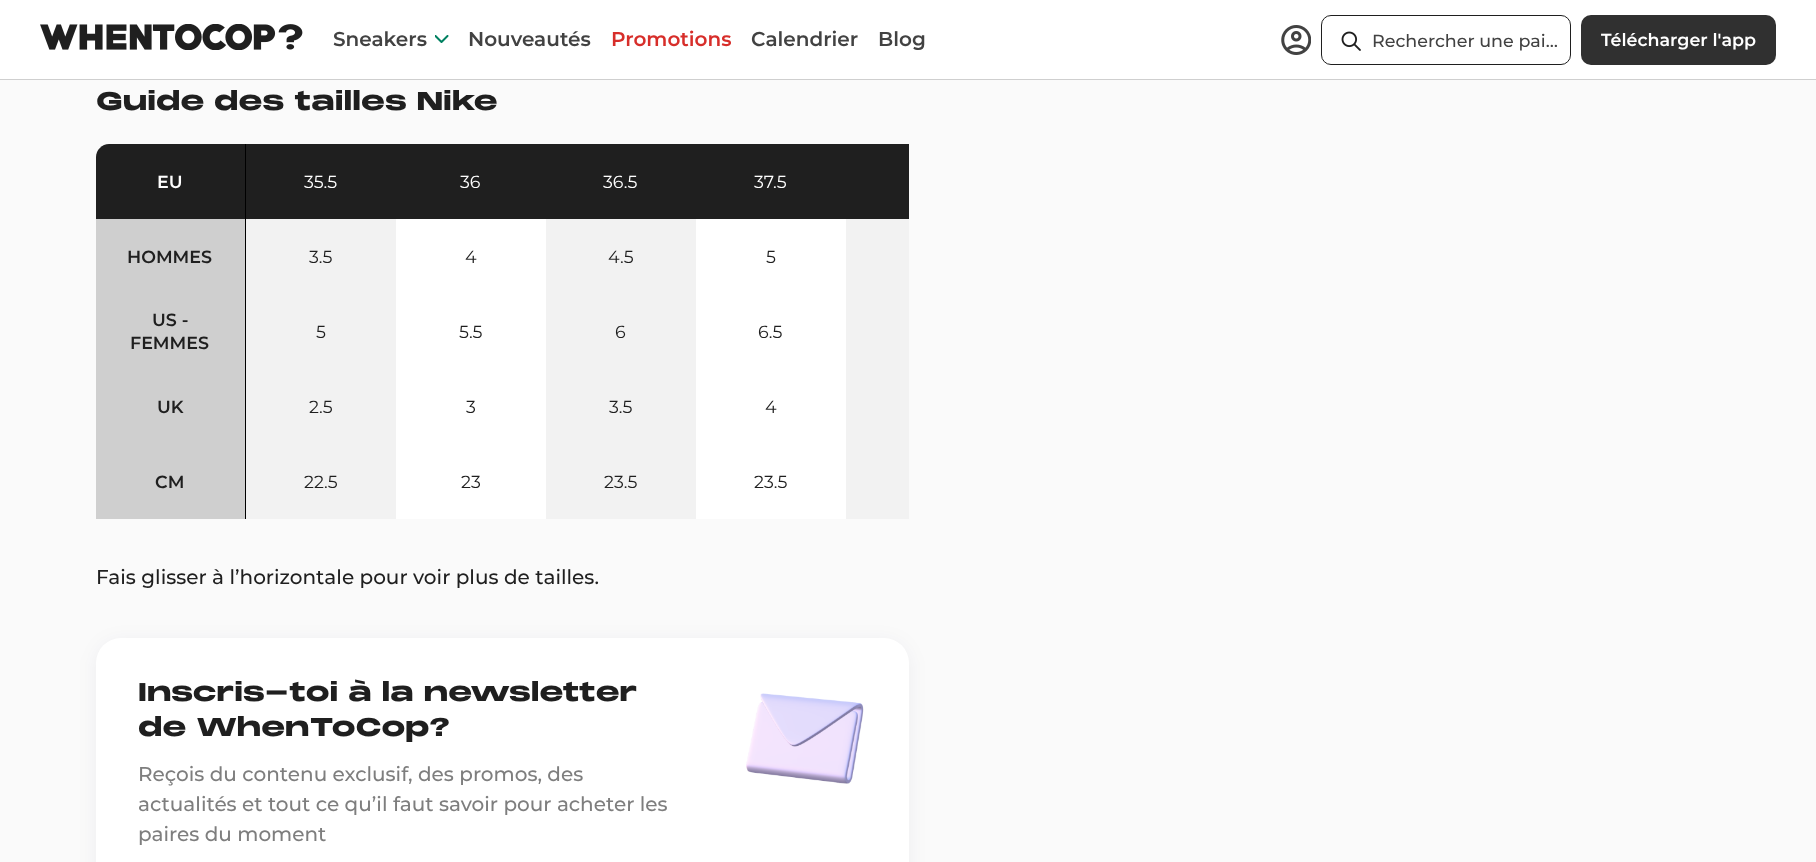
<svg xmlns="http://www.w3.org/2000/svg" width="1816" height="862" viewBox="0 0 1816 862">
  <defs>
    <clipPath id="clip1"><path d="M449 35V44H435V35Z"/></clipPath>
  </defs>
  <rect width="100%" height="100%" fill="#fafafa"/>
  <path d="M0 0h1816v79H0z" fill="#fff"/>
  <path d="M0 79h1816v1H0z" fill="#cfcfcf"/>
  <image x="40" y="24" width="263" height="26" href="img/1.png"/>
  <g clip-path="url(#clip1)">
    <path d="M447.5 36L441.5 42L435.5 36" fill="none" stroke="#008060" stroke-width="2" stroke-linecap="round" stroke-linejoin="round"/>
  </g>
  <image x="1281" y="25" width="30" height="30" href="img/2.png"/>
  <rect x="1321.5" y="15.5" width="249" height="49" rx="9.5" fill="none" stroke="#1f1f1f"/>
  <image x="1341" y="31" width="20" height="20" href="img/3.png"/>
  <rect x="1581" y="15" width="195" height="50" rx="10" fill="#303030"/>
  <path d="M109 144H245V219H96V157C96 150 102 144 109 144Z" fill="#1f1f1f"/>
  <path d="M245 144h1v375H245z" fill="#000"/>
  <path d="M96 219h149v300H96z" fill="#cfcfcf"/>
  <path d="M246 144h663v75H246z" fill="#1f1f1f"/>
  <path d="M246 219h150v300H246z" fill="#f2f2f2"/>
  <path d="M396 219h150v300H396z" fill="#fff"/>
  <path d="M546 219h150v300H546z" fill="#f2f2f2"/>
  <path d="M696 219h150v300H696z" fill="#fff"/>
  <path d="M846 219h63v300H846z" fill="#f2f2f2"/>
  <rect x="96" y="641" width="813" height="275" rx="25" fill="#0a153b0d" filter="blur(9.5px)"/>
  <rect x="96" y="638" width="813" height="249" rx="25" fill="#fff"/>
  <image x="746" y="693" width="118" height="91" href="img/4.png"/>
  <g font-family="Montserrat" font-size="20" font-weight="100" fill="#424242">
    <text x="333" y="46">Sneakers</text>
    <text x="468" y="46">Nouveautés</text>
  </g>
  <text x="611" y="46" font-family="Montserrat" font-size="20" font-weight="100" fill="#d72e2a">Promotions</text>
  <g font-family="Montserrat" font-size="20" font-weight="100" fill="#424242">
    <text x="751" y="46">Calendrier</text>
    <text x="878" y="46">Blog</text>
  </g>
  <text x="1372" y="47" font-family="'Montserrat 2'" font-size="17.5" font-weight="100" fill="#424242">Rechercher une pai…</text>
  <text x="1601" y="46" font-family="Montserrat" font-size="17.5" font-weight="100" fill="#fff">Télécharger l'app</text>
  <text x="96" y="110" font-family="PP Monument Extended" font-size="25" font-weight="900" fill="#1f1f1f">Guide des tailles Nike</text>
  <text x="157" y="188" font-family="Montserrat" font-size="17.5" font-weight="100" fill="#fff">EU</text>
  <g font-family="Montserrat" font-size="17.5" font-weight="100" fill="#1f1f1f">
    <text x="127" y="263">HOMMES</text>
    <text x="152" y="326">US -</text>
    <text x="130" y="349">FEMMES</text>
    <text x="157" y="413">UK</text>
    <text x="155" y="488">CM</text>
  </g>
  <g font-family="'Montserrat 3'" font-size="17.5" font-weight="100" fill="#fff">
    <text x="304" y="188">35.5</text>
    <text x="460" y="188">36</text>
    <text x="603" y="188">36.5</text>
    <text x="754" y="188">37.5</text>
  </g>
  <g font-family="'Montserrat 3'" font-size="17.5" font-weight="100" fill="#1f1f1f">
    <text x="309" y="263">3.5</text>
    <text x="465" y="263">4</text>
    <text x="608" y="263">4.5</text>
    <text x="766" y="263">5</text>
    <text x="316" y="338">5</text>
    <text x="459" y="338">5.5</text>
    <text x="615" y="338">6</text>
    <text x="758" y="338">6.5</text>
    <text x="309" y="413">2.5</text>
    <text x="466" y="413">3</text>
    <text x="609" y="413">3.5</text>
    <text x="765" y="413">4</text>
    <text x="304" y="488">22.5</text>
    <text x="461" y="488">23</text>
    <text x="604" y="488">23.5</text>
    <text x="754" y="488">23.5</text>
  </g>
  <text x="96" y="584" font-family="'Montserrat 2'" font-size="20" font-weight="100" fill="#1f1f1f">Fais glisser à l’horizontale pour voir plus de tailles.</text>
  <g font-family="PP Monument Extended" font-size="25" font-weight="900" fill="#1f1f1f">
    <text x="138" y="701">Inscris-toi à la newsletter</text>
    <text x="138" y="736">de WhenToCop?</text>
  </g>
  <g font-family="'Montserrat 2'" font-size="20" font-weight="100" fill="#7e7e7e">
    <text x="138" y="781">Reçois du contenu exclusif, des promos, des</text>
    <text x="138" y="811">actualités et tout ce qu’il faut savoir pour acheter les</text>
    <text x="138" y="841">paires du moment</text>
  </g>
</svg>
